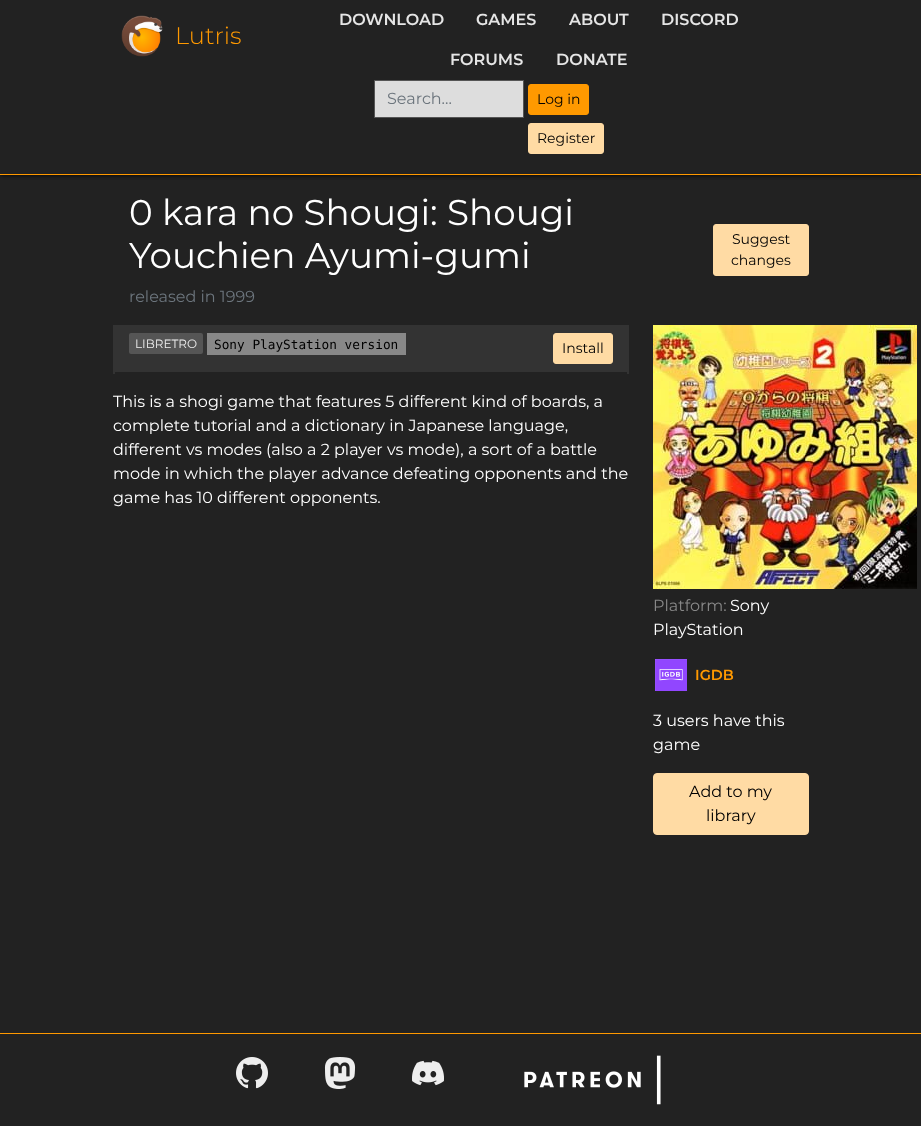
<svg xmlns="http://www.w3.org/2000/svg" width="921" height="1126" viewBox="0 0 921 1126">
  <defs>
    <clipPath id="clip1"><path d="M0 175h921v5H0z"/></clipPath>
  </defs>
  <rect width="100%" height="100%" fill="#222"/>
  <g clip-path="url(#clip1)">
    <path d="M0 0h921v175H0z" fill="#000" filter="blur(2.5px)"/>
  </g>
  <path d="M0 174h921v1H0z" fill="#f90"/>
  <image x="121" y="15" width="42" height="42" href="img/1.png"/>
  <path d="M374.5 80.5h149v37H374.5z" fill="#ddd" stroke="#555"/>
  <rect x="528.5" y="84.5" width="60" height="30" rx="2.5" fill="#f90" stroke="#f90"/>
  <rect x="528.5" y="123.5" width="75" height="30" rx="2.5" fill="#ffdba4" stroke="#ffdba4"/>
  <rect x="713.5" y="224.5" width="95" height="51" rx="2.5" fill="#ffdba4" stroke="#ffdba4"/>
  <path d="M113 325h516v49H113z" fill="#333"/>
  <path d="M115 372h512v2H115z" fill="#222"/>
  <rect x="129" y="333" width="74" height="21" rx="2" fill="#555"/>
  <path d="M207 333h199v22H207z" fill="#888"/>
  <rect x="553.5" y="333.5" width="59" height="30" rx="2.5" fill="#ffdba4" stroke="#ffdba4"/>
  <image x="653" y="325" width="264" height="264" href="img/2.png"/>
  <image x="655" y="659" width="32" height="32" href="img/3.png"/>
  <rect x="653.5" y="773.5" width="155" height="61" rx="3.5" fill="#ffdba4" stroke="#ffdba4"/>
  <path d="M0 1033h921v1H0z" fill="#f90"/>
  <image x="236" y="1057" width="32" height="32" href="img/4.png"/>
  <image x="324" y="1057" width="32" height="32" href="img/5.png"/>
  <image x="412" y="1060" width="32" height="26" href="img/6.png"/>
  <image x="524" y="1055" width="137" height="50" href="img/7.png"/>
  <text x="175" y="44" font-family="Montserrat" font-size="24" font-weight="300" fill="#f90">Lutris</text>
  <g font-family="Montserrat" font-size="16" font-weight="600" fill="#e5e5e5">
    <text x="339" y="25">DOWNLOAD</text>
    <text x="476" y="25">GAMES</text>
    <text x="569" y="25">ABOUT</text>
    <text x="661" y="25">DISCORD</text>
    <text x="450" y="65">FORUMS</text>
    <text x="556" y="65">DONATE</text>
  </g>
  <text x="387" y="104" font-family="Montserrat" font-size="16" fill="#6c757d">Search...</text>
  <g font-family="Montserrat" font-size="14" fill="#000">
    <text x="537" y="104">Log in</text>
    <text x="537" y="143">Register</text>
  </g>
  <g font-family="Montserrat" font-size="35.75" fill="#fff">
    <text x="129" y="225">0 kara no Shougi: Shougi</text>
    <text x="129" y="268">Youchien Ayumi-gumi</text>
  </g>
  <text x="129" y="302" font-family="Montserrat" font-size="16" fill="#6c757d">released in 1999</text>
  <g font-family="Montserrat" font-size="14" fill="#000">
    <text x="732" y="244">Suggest</text>
    <text x="731" y="265">changes</text>
  </g>
  <text x="135" y="348" font-family="Montserrat" font-size="12" fill="#ededed">LIBRETRO</text>
  <text x="214" y="349" font-family="DejaVu Sans Mono" font-size="12.75" fill="#000">Sony PlayStation version</text>
  <text x="562" y="353" font-family="Montserrat" font-size="14" fill="#000">Install</text>
  <g font-family="Montserrat" font-size="16" fill="#fff">
    <text x="113" y="407">This is a shogi game that features 5 different kind of boards, a</text>
    <text x="113" y="431">complete tutorial and a dictionary in Japanese language,</text>
    <text x="113" y="455">different vs modes (also a 2 player vs mode), a sort of a battle</text>
    <text x="113" y="479">mode in which the player advance defeating opponents and the</text>
    <text x="113" y="503">game has 10 different opponents.</text>
  </g>
  <text x="653" y="611" font-family="Montserrat" font-size="16" fill="#888">Platform:</text>
  <g font-family="Montserrat" font-size="16" fill="#fff">
    <text x="730" y="611">Sony</text>
    <text x="653" y="635">PlayStation</text>
  </g>
  <text x="695" y="680" font-family="Montserrat" font-size="14.5" font-weight="600" fill="#f90">IGDB</text>
  <g font-family="Montserrat" font-size="16" fill="#fff">
    <text x="653" y="726">3 users have this</text>
    <text x="653" y="750">game</text>
  </g>
  <g font-family="Montserrat" font-size="16" fill="#000">
    <text x="689" y="797">Add to my</text>
    <text x="706" y="821">library</text>
  </g>
</svg>
